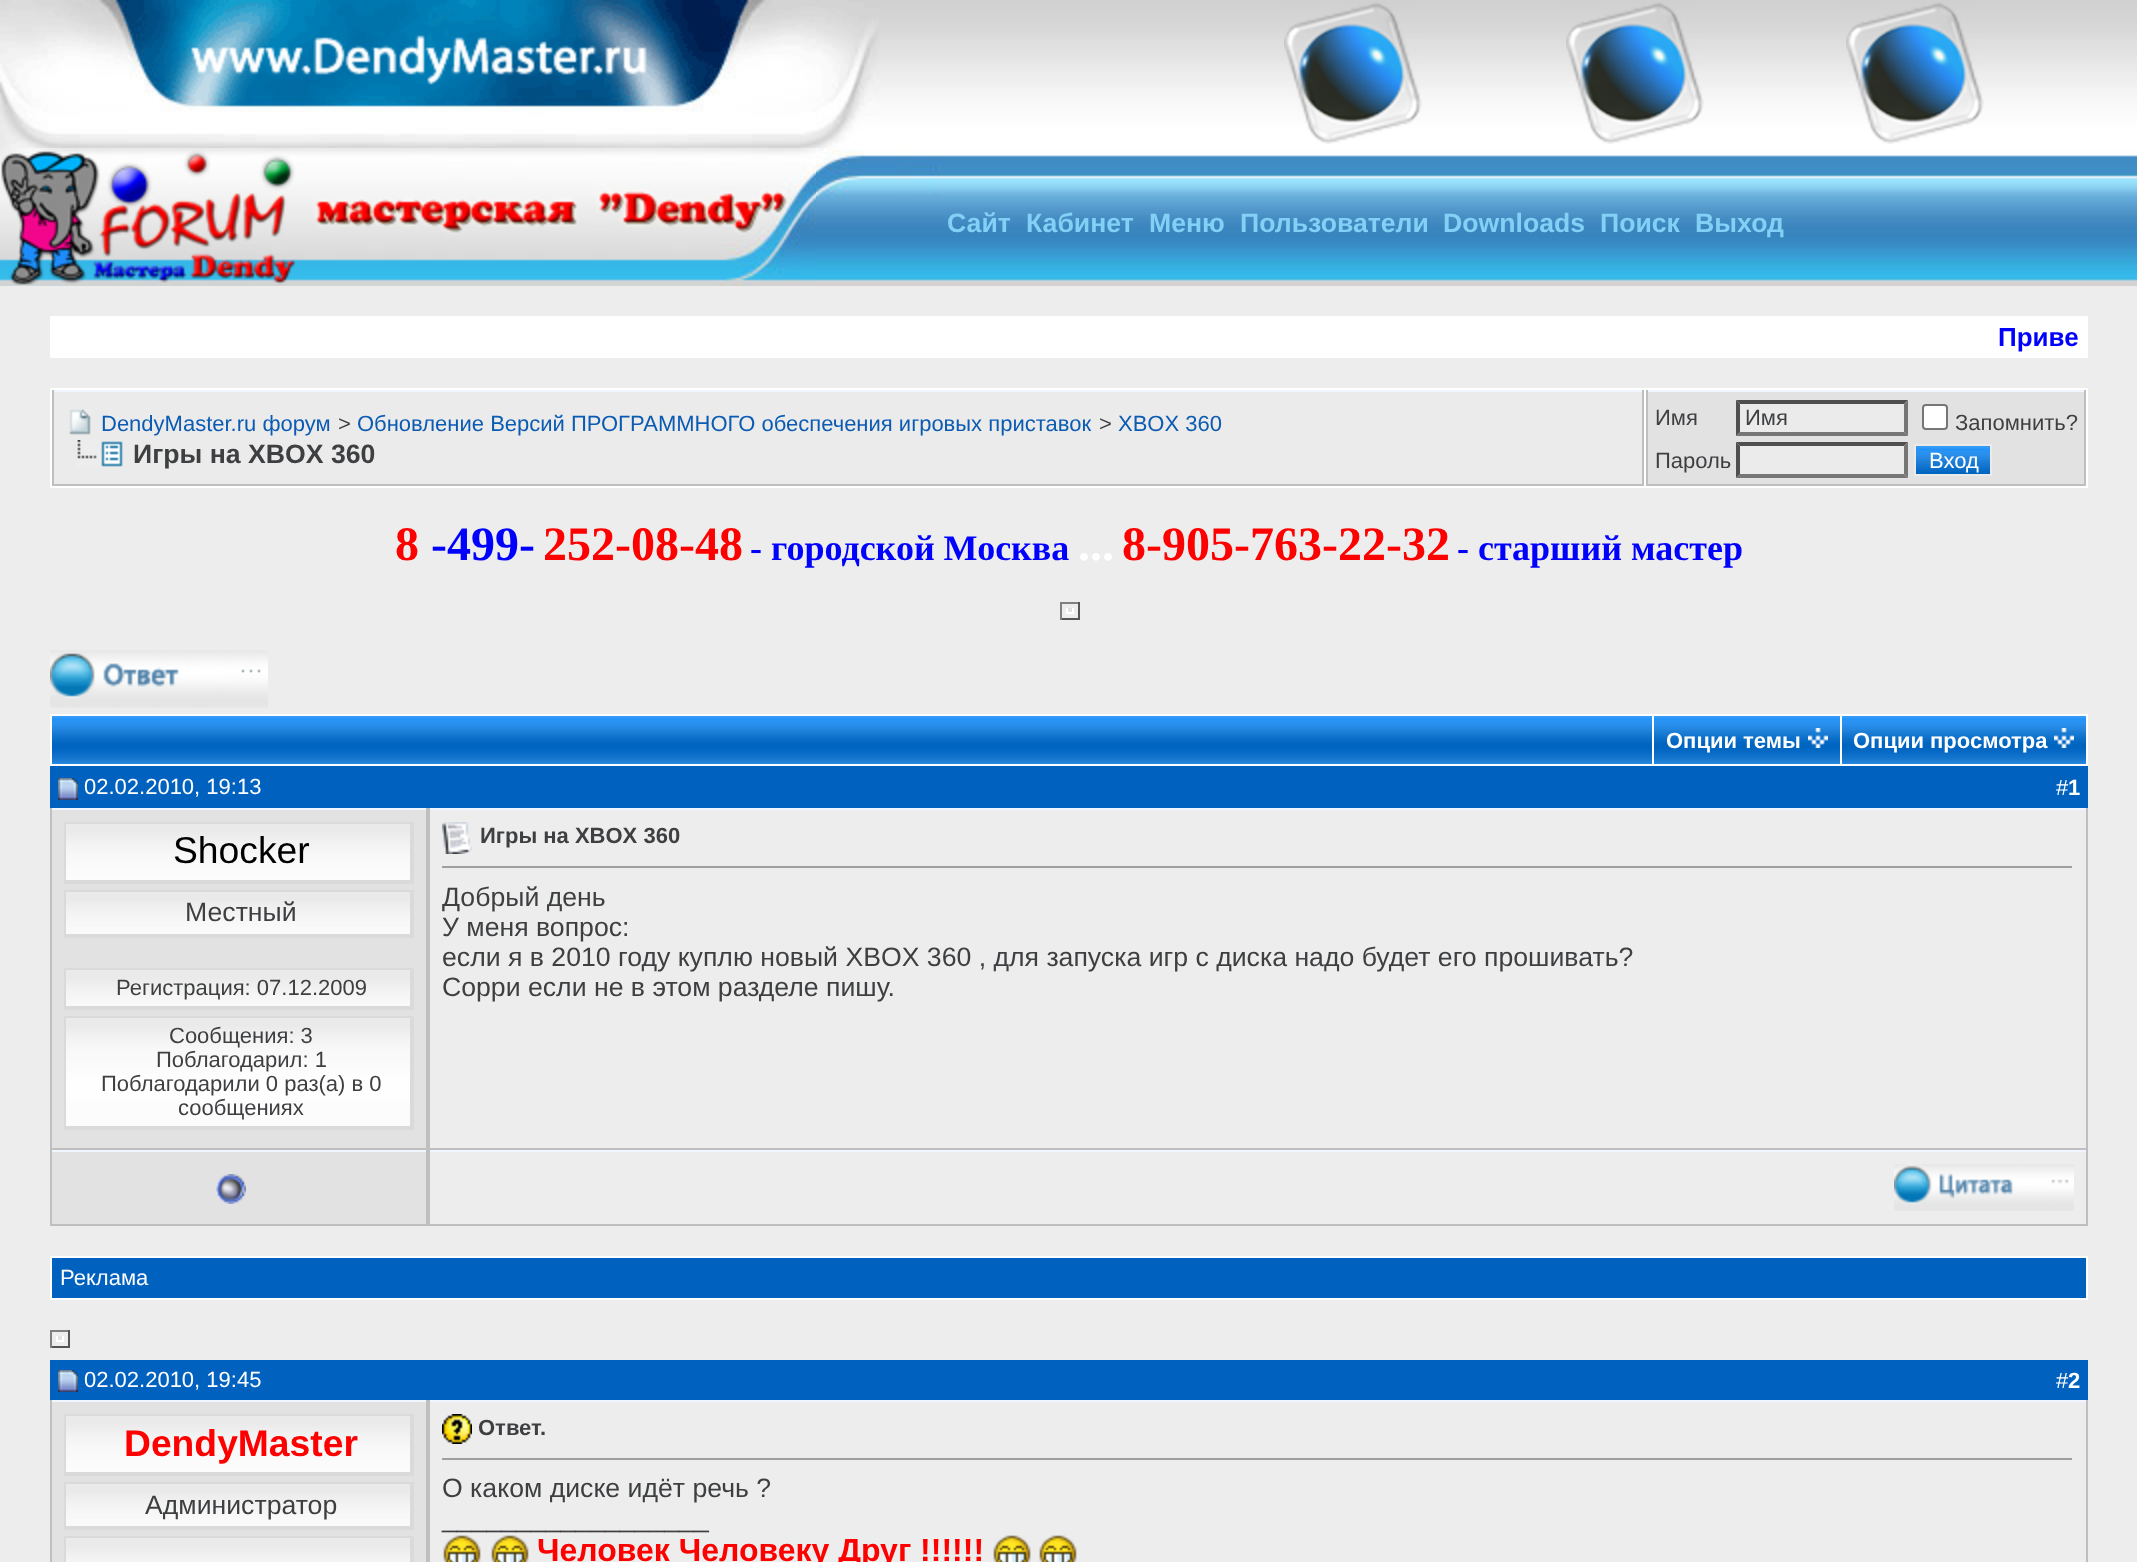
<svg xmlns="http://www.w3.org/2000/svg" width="2137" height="1562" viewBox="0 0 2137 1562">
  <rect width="100%" height="100%" fill="#fff"/>
  <image x="879" y="0" width="1258" height="148" href="img/1.png"/>
  <image x="0" y="0" width="879" height="148" href="img/2.png"/>
  <image x="1284" y="2" width="138" height="142" href="img/3.png"/>
  <image x="1566" y="2" width="138" height="142" href="img/3.png"/>
  <image x="1846" y="2" width="138" height="142" href="img/3.png"/>
  <image x="816" y="148" width="1321" height="138" href="img/4.png"/>
  <image x="0" y="148" width="816" height="138" href="img/5.png"/>
  <image x="816" y="148" width="124" height="49" href="img/6.png"/>
  <path d="M0 286h2137v1276H0z" fill="#ededed"/>
  <path d="M50 316h2038v42H50z" fill="#fff"/>
  <path d="M50 388h2038v100H50z" fill="#fff"/>
  <path d="M54 392h1588v92H54z" fill="#ebebeb"/>
  <path d="M52 390h1592v2H52z" fill="#eff6ff"/>
  <path d="M1642 390h2v96H1642z" fill="#bfbfbf"/>
  <path d="M52 484h1592v2H52z" fill="#bfbfbf"/>
  <path d="M52 390h2v96H52z" fill="#bfbfbf"/>
  <image x="69" y="409" width="22" height="26" href="img/7.png"/>
  <image x="77" y="440" width="46" height="27" href="img/8.png"/>
  <path d="M1648 392h436v92H1648z" fill="#e2e2e2"/>
  <path d="M1646 390h440v2H1646z" fill="#eff6ff"/>
  <path d="M2084 390h2v96H2084z" fill="#bfbfbf"/>
  <path d="M1646 484h440v2H1646z" fill="#bfbfbf"/>
  <path d="M1646 390h2v96H1646z" fill="#bfbfbf"/>
  <path d="M1736 400h172v36H1736z" fill="#ebebeb"/>
  <path d="M1736 400H1908L1904 404H1740Z" fill="#4f4f4f"/>
  <path d="M1908 400V436L1904 432V404Z" fill="#767676"/>
  <path d="M1908 436H1736L1740 432H1904Z" fill="#767676"/>
  <path d="M1736 436V400L1740 404V432Z" fill="#4f4f4f"/>
  <rect x="1923" y="405" width="24" height="24" rx="3" fill="#fff" stroke="#767676" stroke-width="2"/>
  <path d="M1736 442h172v36H1736z" fill="#ebebeb"/>
  <path d="M1736 442H1908L1904 446H1740Z" fill="#4f4f4f"/>
  <path d="M1908 442V478L1904 474V446Z" fill="#767676"/>
  <path d="M1908 478H1736L1740 474H1904Z" fill="#767676"/>
  <path d="M1736 478V442L1740 446V474Z" fill="#4f4f4f"/>
  <image x="1916" y="446" width="74" height="28" href="img/9.png"/>
  <path d="M1915 445h76v30H1915z" fill="none" stroke="#ebebeb" stroke-width="2"/>
  <path d="M1060 602h20v2H1060z" fill="#808080"/>
  <path d="M1078 602h2v18H1078z" fill="#555"/>
  <path d="M1060 618h20v2H1060z" fill="#555"/>
  <path d="M1060 602h2v18H1060z" fill="#808080"/>
  <path d="M1066 608h8v4H1066z" fill="#e2e2e2"/>
  <path d="M1072 608h2v6H1072z" fill="#fff"/>
  <path d="M1066 612h8v2H1066z" fill="#fff"/>
  <path d="M1066 608h2v6H1066z" fill="#fff"/>
  <image x="50" y="650" width="218" height="58" href="img/10.png"/>
  <path d="M50 714h2038v52H50z" fill="#fff"/>
  <image x="52" y="716" width="1600" height="48" href="img/11.png"/>
  <image x="1654" y="716" width="186" height="48" href="img/12.png"/>
  <image x="1808" y="728" width="20" height="20" href="img/13.png"/>
  <image x="1842" y="716" width="244" height="48" href="img/14.png"/>
  <image x="2054" y="728" width="20" height="20" href="img/13.png"/>
  <path d="M50 766h2038v42H50z" fill="#0061be"/>
  <image x="58" y="778" width="20" height="22" href="img/15.png"/>
  <path d="M52 810h374v338H52z" fill="#e2e2e2"/>
  <path d="M50 808h2038v2H50z" fill="#eff6ff"/>
  <path d="M426 808h2v342H426z" fill="#bfbfbf"/>
  <path d="M50 1148h378v2H50z" fill="#bfbfbf"/>
  <path d="M50 808h2v342H50z" fill="#bfbfbf"/>
  <image x="66" y="824" width="344" height="56" href="img/16.png"/>
  <path d="M64 822h350v2H64z" fill="#dadada"/>
  <path d="M410 822h4v62H410z" fill="#dadada"/>
  <path d="M64 880h350v4H64z" fill="#dadada"/>
  <path d="M64 822h2v62H64z" fill="#dadada"/>
  <image x="66" y="892" width="344" height="42" href="img/17.png"/>
  <path d="M64 890h350v2H64z" fill="#dadada"/>
  <path d="M410 890h4v48H410z" fill="#dadada"/>
  <path d="M64 934h350v4H64z" fill="#dadada"/>
  <path d="M64 890h2v48H64z" fill="#dadada"/>
  <image x="66" y="970" width="344" height="36" href="img/18.png"/>
  <path d="M64 968h350v2H64z" fill="#dadada"/>
  <path d="M410 968h4v42H410z" fill="#dadada"/>
  <path d="M64 1006h350v4H64z" fill="#dadada"/>
  <path d="M64 968h2v42H64z" fill="#dadada"/>
  <image x="66" y="1018" width="344" height="108" href="img/19.png"/>
  <path d="M64 1016h350v2H64z" fill="#dadada"/>
  <path d="M410 1016h4v114H410z" fill="#dadada"/>
  <path d="M64 1126h350v4H64z" fill="#dadada"/>
  <path d="M64 1016h2v114H64z" fill="#dadada"/>
  <path d="M2086 808h2v342H2086z" fill="#bfbfbf"/>
  <path d="M428 1148h1660v2H428z" fill="#bfbfbf"/>
  <path d="M428 808h2v342H428z" fill="#bfbfbf"/>
  <image x="442" y="822" width="31" height="32" href="img/20.png"/>
  <path d="M442 866h1632v2H442z" fill="#9f9f9f"/>
  <path d="M2072 866h2v2H2072z" fill="#eee"/>
  <path d="M52 1152h374v72H52z" fill="#e2e2e2"/>
  <path d="M50 1150h2038v2H50z" fill="#eff6ff"/>
  <path d="M426 1150h2v76H426z" fill="#bfbfbf"/>
  <path d="M50 1224h378v2H50z" fill="#bfbfbf"/>
  <path d="M50 1150h2v76H50z" fill="#bfbfbf"/>
  <image x="216" y="1174" width="30" height="30" href="img/21.png"/>
  <path d="M2086 1150h2v76H2086z" fill="#bfbfbf"/>
  <path d="M428 1224h1660v2H428z" fill="#bfbfbf"/>
  <path d="M428 1150h2v76H428z" fill="#bfbfbf"/>
  <image x="1894" y="1164" width="180" height="47" href="img/22.png"/>
  <path d="M51 1257h2036v42H51z" fill="#0061be" stroke="#fff" stroke-width="2"/>
  <path d="M50 1330h20v2H50z" fill="#808080"/>
  <path d="M68 1330h2v18H68z" fill="#555"/>
  <path d="M50 1346h20v2H50z" fill="#555"/>
  <path d="M50 1330h2v18H50z" fill="#808080"/>
  <path d="M56 1336h8v4H56z" fill="#e2e2e2"/>
  <path d="M62 1336h2v6H62z" fill="#fff"/>
  <path d="M56 1340h8v2H56z" fill="#fff"/>
  <path d="M56 1336h2v6H56z" fill="#fff"/>
  <path d="M50 1360h2038v40H50z" fill="#0061be"/>
  <image x="58" y="1370" width="20" height="22" href="img/15.png"/>
  <path d="M52 1402h374v160H52z" fill="#e2e2e2"/>
  <path d="M50 1400h2038v2H50z" fill="#eff6ff"/>
  <path d="M426 1400h4v162H426z" fill="#bfbfbf"/>
  <path d="M50 1400h2v162H50z" fill="#bfbfbf"/>
  <image x="66" y="1416" width="344" height="56" href="img/16.png"/>
  <path d="M64 1414h350v2H64z" fill="#dadada"/>
  <path d="M410 1414h4v62H410z" fill="#dadada"/>
  <path d="M64 1472h350v4H64z" fill="#dadada"/>
  <path d="M64 1414h2v62H64z" fill="#dadada"/>
  <image x="66" y="1484" width="344" height="42" href="img/17.png"/>
  <path d="M64 1482h350v2H64z" fill="#dadada"/>
  <path d="M410 1482h4v48H410z" fill="#dadada"/>
  <path d="M64 1526h350v4H64z" fill="#dadada"/>
  <path d="M64 1482h2v48H64z" fill="#dadada"/>
  <image x="66" y="1538" width="344" height="24" href="img/23.png"/>
  <path d="M64 1536h350v2H64z" fill="#dadada"/>
  <path d="M410 1536h4v26H410z" fill="#dadada"/>
  <path d="M64 1536h2v26H64z" fill="#dadada"/>
  <path d="M2086 1400h2v162H2086z" fill="#bfbfbf"/>
  <image x="442" y="1414" width="30" height="30" href="img/24.png"/>
  <path d="M442 1458h1632v2H442z" fill="#9f9f9f"/>
  <path d="M2072 1458h2v2H2072z" fill="#eee"/>
  <image x="443" y="1535" width="38" height="27" href="img/25.png"/>
  <image x="491" y="1535" width="38" height="27" href="img/25.png"/>
  <image x="993" y="1535" width="38" height="27" href="img/25.png"/>
  <image x="1039" y="1535" width="38" height="27" href="img/25.png"/>
  <g font-family="Liberation Sans" font-size="26.65" font-weight="bold" fill="#82d0f5">
    <text x="947" y="232">Сайт</text>
    <text x="1026" y="232">Кабинет</text>
    <text x="1149" y="232">Меню</text>
    <text x="1240" y="232">Пользователи</text>
    <text x="1443" y="232">Downloads</text>
    <text x="1600" y="232">Поиск</text>
    <text x="1695" y="232">Выход</text>
  </g>
  <text x="1998" y="346" font-family="Liberation Sans" font-size="26" font-weight="bold" fill="#00f">Приве</text>
  <text x="101" y="431" font-family="Liberation Sans" font-size="22" fill="#0c5bb3">DendyMaster.ru форум</text>
  <text x="338" y="431" font-family="Liberation Sans" font-size="22" fill="#3e3f41">&gt;</text>
  <text x="357" y="431" font-family="Liberation Sans" font-size="22" fill="#0c5bb3">Обновление Версий ПРОГРАММНОГО обеспечения игровых приставок</text>
  <text x="1099" y="431" font-family="Liberation Sans" font-size="22" fill="#3e3f41">&gt;</text>
  <text x="1118" y="431" font-family="Liberation Sans" font-size="22" fill="#0c5bb3">XBOX 360</text>
  <text x="133" y="463" font-family="Liberation Sans" font-size="26.65" font-weight="bold" fill="#3e3f41">Игры на XBOX 360</text>
  <g font-family="Liberation Sans" font-size="22" fill="#3e3f41">
    <text x="1655" y="425">Имя</text>
    <text x="1745" y="425">Имя</text>
    <text x="1955" y="430">Запомнить?</text>
    <text x="1655" y="468">Пароль</text>
  </g>
  <text x="1929" y="468" font-family="Liberation Sans" font-size="22" fill="#fff">Вход</text>
  <text x="395" y="560" font-family="Liberation Serif" font-size="48" font-weight="bold" fill="#f00">8</text>
  <text x="431" y="560" font-family="Liberation Serif" font-size="48" font-weight="bold" fill="#00f">-499-</text>
  <text x="543" y="560" font-family="Liberation Serif" font-size="48" font-weight="bold" fill="#f00">252-08-48</text>
  <text x="750" y="560" font-family="Liberation Serif" font-size="36" font-weight="bold" fill="#00f">- городской Москва</text>
  <text x="1078" y="560" font-family="Liberation Serif" font-size="48" font-weight="bold" fill="#fff">...</text>
  <text x="1122" y="560" font-family="Liberation Serif" font-size="48" font-weight="bold" fill="#f00">8-905-763-22-32</text>
  <text x="1457" y="560" font-family="Liberation Serif" font-size="36" font-weight="bold" fill="#00f">- старший мастер</text>
  <g font-family="Liberation Sans" font-size="22" font-weight="bold" fill="#fff">
    <text x="1666" y="748">Опции темы</text>
    <text x="1853" y="748">Опции просмотра</text>
  </g>
  <g font-family="Liberation Sans" font-size="22" fill="#fff">
    <text x="84" y="794">02.02.2010, 19:13</text>
    <text x="2056" y="795">#</text>
  </g>
  <text x="2068" y="795" font-family="Liberation Sans" font-size="22" font-weight="bold" fill="#fff">1</text>
  <text x="173" y="863" font-family="Liberation Sans" font-size="37.25" fill="#000">Shocker</text>
  <text x="185" y="921" font-family="Liberation Sans" font-size="26.65" fill="#3e3f41">Местный</text>
  <g font-family="Liberation Sans" font-size="22" fill="#3e3f41">
    <text x="116" y="995">Регистрация: 07.12.2009</text>
    <text x="169" y="1043">Сообщения: 3</text>
    <text x="156" y="1067">Поблагодарил: 1</text>
    <text x="101" y="1091">Поблагодарили 0 раз(а) в 0</text>
    <text x="178" y="1115">сообщениях</text>
  </g>
  <text x="480" y="843" font-family="Liberation Sans" font-size="22" font-weight="bold" fill="#3e3f41">Игры на XBOX 360</text>
  <g font-family="Liberation Sans" font-size="26.65" fill="#3e3f41">
    <text x="442" y="906">Добрый день</text>
    <text x="442" y="936">У меня вопрос:</text>
    <text x="442" y="966">если я в 2010 году куплю новый XBOX 360 , для запуска игр с диска надо будет его прошивать?</text>
    <text x="442" y="996">Сорри если не в этом разделе пишу.</text>
  </g>
  <g font-family="Liberation Sans" font-size="22" fill="#fff">
    <text x="60" y="1285">Реклама</text>
    <text x="84" y="1387">02.02.2010, 19:45</text>
    <text x="2056" y="1388">#</text>
  </g>
  <text x="2068" y="1388" font-family="Liberation Sans" font-size="22" font-weight="bold" fill="#fff">2</text>
  <text x="124" y="1456" font-family="Liberation Sans" font-size="37.25" font-weight="bold" fill="#f00">DendyMaster</text>
  <text x="145" y="1514" font-family="Liberation Sans" font-size="26.65" fill="#3e3f41">Администратор</text>
  <text x="478" y="1435" font-family="Liberation Sans" font-size="22" font-weight="bold" fill="#3e3f41">Ответ.</text>
  <g font-family="Liberation Sans" font-size="26.65" fill="#3e3f41">
    <text x="442" y="1497">О каком диске идёт речь ?</text>
    <text x="442" y="1527">__________________</text>
  </g>
  <text x="537" y="1561" font-family="Liberation Sans" font-size="32" font-weight="bold" fill="#f00">Человек Человеку Друг !!!!!!</text>
</svg>
